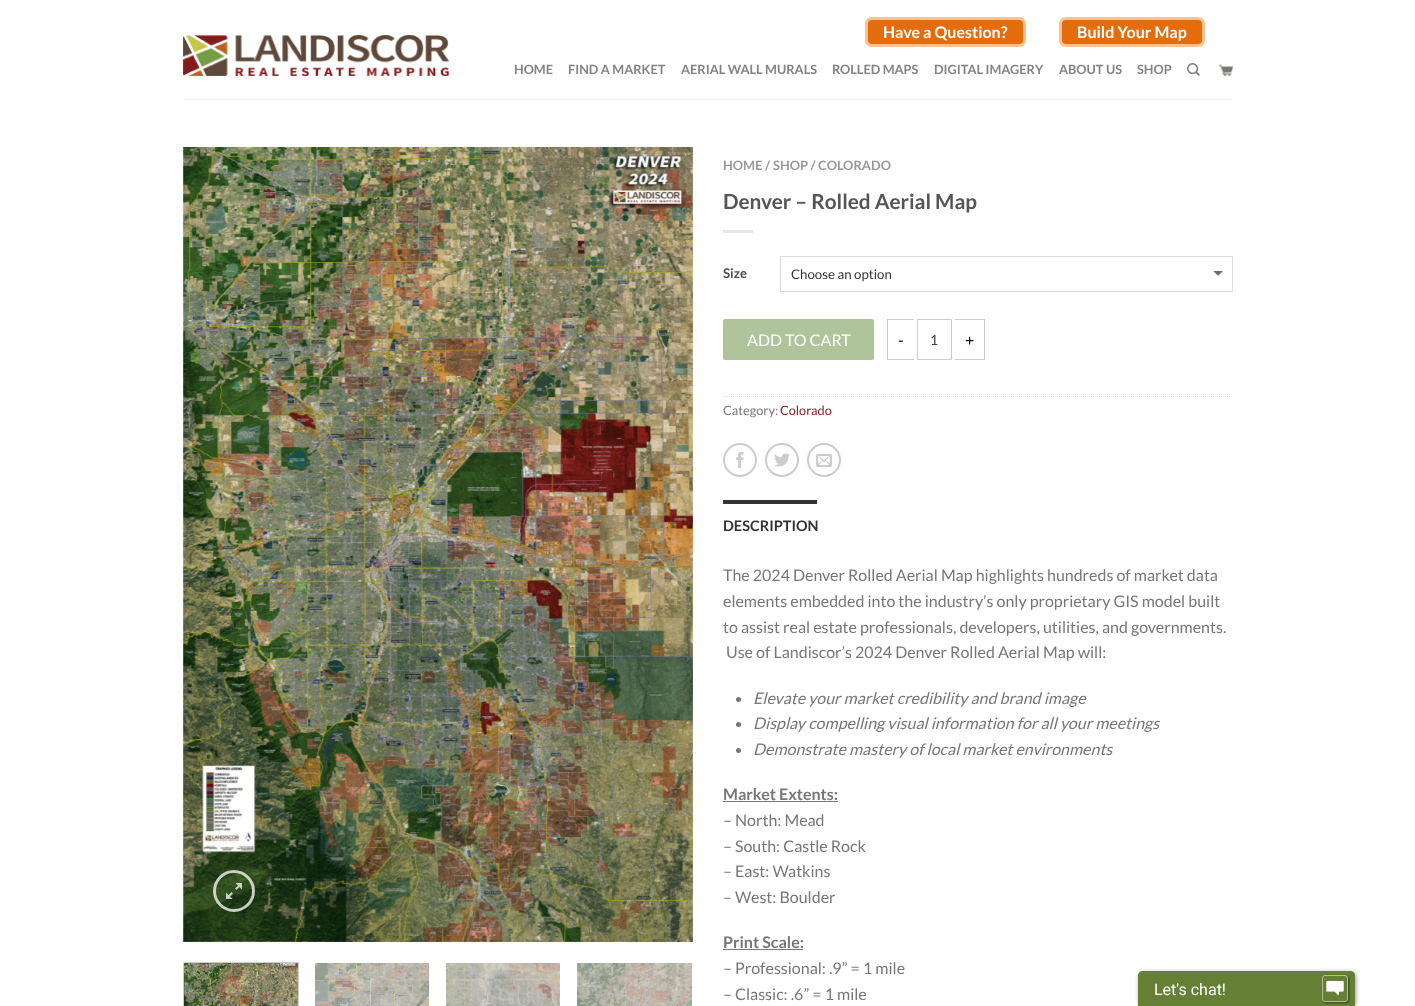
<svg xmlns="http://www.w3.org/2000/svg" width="1415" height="1006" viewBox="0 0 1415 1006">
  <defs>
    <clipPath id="clip1"><path d="M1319 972H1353V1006H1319ZM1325 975H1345C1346.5 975 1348 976.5 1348 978V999C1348 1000.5 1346.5 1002 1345 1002H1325C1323.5 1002 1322 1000.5 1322 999V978C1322 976.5 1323.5 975 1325 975Z" clip-rule="evenodd"/></clipPath>
  </defs>
  <rect width="100%" height="100%" fill="#fff"/>
  <image x="183" y="35" width="266" height="41" href="img/1.png"/>
  <rect x="866.5" y="18.5" width="158" height="27" rx="5.5" fill="#e46c0a" stroke="#fac090" stroke-width="3"/>
  <rect x="1060.5" y="18.5" width="143" height="27" rx="5.5" fill="#e46c0a" stroke="#fac090" stroke-width="3"/>
  <image x="1187" y="63" width="13" height="13" href="img/2.png"/>
  <image x="1219" y="64" width="14" height="13" href="img/3.png"/>
  <path d="M183 99h1050v1H183z" fill="#eee"/>
  <image x="183" y="147" width="510" height="795" href="img/4.png"/>
  <circle cx="234" cy="891" r="19.5" fill="none" stroke="#ffffffbf" stroke-width="3"/>
  <image x="226" y="883" width="16" height="16" href="img/5.png"/>
  <path d="M183.5 962.5h115v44H183.5z" fill="none" stroke="#ccc"/>
  <image x="184" y="963" width="114" height="43" href="img/6.png"/>
  <image x="315" y="963" width="114" height="43" href="img/7.png"/>
  <image x="446" y="963" width="114" height="43" href="img/8.png"/>
  <image x="577" y="963" width="115" height="43" href="img/9.png"/>
  <path d="M723 230h30v3H723z" fill="#e6e6e6"/>
  <image x="1213" y="271" width="10" height="5" href="img/10.png"/>
  <path d="M780.5 256.5h452v35H780.5z" fill="none" stroke="#ddd"/>
  <rect x="723" y="319" width="151" height="41" rx="2" fill="#afc49b"/>
  <path d="M887 319h27v1H887z" fill="#ccc"/>
  <path d="M887 359h27v1H887z" fill="#ccc"/>
  <path d="M887 319h1v41H887z" fill="#ccc"/>
  <path d="M917.5 319.5h34v40H917.5z" fill="none" stroke="#ccc"/>
  <path d="M955 319h30v1H955z" fill="#ccc"/>
  <path d="M984 319h1v41H984z" fill="#ccc"/>
  <path d="M955 359h30v1H955z" fill="#ccc"/>
  <path d="M723 396.5H1233" fill="none" stroke="#ddd" stroke-dasharray="1 1"/>
  <circle cx="740" cy="460" r="16" fill="none" stroke="#ccc" stroke-width="2"/>
  <image x="736" y="452" width="8" height="16" href="img/11.png"/>
  <circle cx="782" cy="460" r="16" fill="none" stroke="#ccc" stroke-width="2"/>
  <image x="774" y="453" width="16" height="14" href="img/12.png"/>
  <circle cx="824" cy="460" r="16" fill="none" stroke="#ccc" stroke-width="2"/>
  <image x="816" y="454" width="16" height="13" href="img/13.png"/>
  <path d="M723 500h94v4H723z" fill="#333"/>
  <circle cx="738.5" cy="699.5" r="2.5" fill="#777"/>
  <circle cx="738.5" cy="724.5" r="2.5" fill="#777"/>
  <circle cx="738.5" cy="750.5" r="2.5" fill="#777"/>
  <path d="M723 801h115v1H723z" fill="#777"/>
  <path d="M723 949h80v1H723z" fill="#777"/>
  <rect x="1139" y="972" width="217" height="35" rx="5" fill="#00000066" filter="blur(2px)"/>
  <path d="M1143 971H1350C1353 971 1355 973 1355 976V1006H1138V976C1138 973 1140 971 1143 971Z" fill="#657f35"/>
  <g clip-path="url(#clip1)">
    <rect x="1323" y="976" width="26" height="27" rx="3" fill="#00000080" filter="blur(1px)"/>
  </g>
  <rect x="1322.5" y="975.5" width="25" height="26" rx="2.5" fill="none" stroke="#ffffff80"/>
  <image x="1326" y="980" width="18" height="15" href="img/14.png"/>
  <g font-family="Lato" font-size="16" font-weight="bold" fill="#fff">
    <text x="883" y="38">Have a Question?</text>
    <text x="1077" y="38">Build Your Map</text>
  </g>
  <g font-family="Lato" font-size="12.75" font-weight="bold" fill="#838382">
    <text x="514" y="74">HOME</text>
    <text x="568" y="74">FIND A MARKET</text>
    <text x="681" y="74">AERIAL WALL MURALS</text>
    <text x="832" y="74">ROLLED MAPS</text>
    <text x="934" y="74">DIGITAL IMAGERY</text>
    <text x="1059" y="74">ABOUT US</text>
    <text x="1137" y="74">SHOP</text>
  </g>
  <g font-family="Lato" font-size="12.9" font-weight="bold" fill="#999">
    <text x="723" y="170">HOME /</text>
    <text x="773" y="170">SHOP / COLORADO</text>
  </g>
  <text x="723" y="209" font-family="Lato" font-size="20.75" font-weight="bold" fill="#555">Denver – Rolled Aerial Map</text>
  <text x="723" y="278" font-family="Lato" font-size="13.25" font-weight="bold" fill="#4d4d4d">Size</text>
  <text x="791" y="279" font-family="Lato" font-size="13.25" fill="#333">Choose an option</text>
  <text x="747" y="346" font-family="Lato" font-size="16" fill="#fff">ADD TO CART</text>
  <text x="898" y="346" font-family="Lato" font-size="16" fill="#000">-</text>
  <text x="930" y="345" font-family="Lato" font-size="14" fill="#404040">1</text>
  <text x="965" y="346" font-family="Lato" font-size="16" fill="#000">+</text>
  <text x="723" y="415" font-family="Lato" font-size="12.75" fill="#777">Category:</text>
  <text x="780" y="415" font-family="Lato" font-size="12.75" fill="#841e1e">Colorado</text>
  <text x="723" y="531" font-family="Lato" font-size="14.5" font-weight="bold" fill="#333">DESCRIPTION</text>
  <g font-family="Lato" font-size="16" fill="#777">
    <text x="723" y="581">The 2024 Denver Rolled Aerial Map highlights hundreds of market data</text>
    <text x="723" y="607">elements embedded into the industry’s only proprietary GIS model built</text>
    <text x="723" y="633">to assist real estate professionals, developers, utilities, and governments.</text>
    <text x="726" y="658">Use of Landiscor’s 2024 Denver Rolled Aerial Map will:</text>
  </g>
  <g font-family="Lato" font-size="16" font-style="italic" fill="#777">
    <text x="753" y="704">Elevate your market credibility and brand image</text>
    <text x="753" y="729">Display compelling visual information for all your meetings</text>
    <text x="753" y="755">Demonstrate mastery of local market environments</text>
  </g>
  <text x="723" y="800" font-family="Lato" font-size="16" font-weight="bold" fill="#777">Market Extents:</text>
  <g font-family="Lato" font-size="16" fill="#777">
    <text x="723" y="826">– North: Mead</text>
    <text x="723" y="852">– South: Castle Rock</text>
    <text x="723" y="877">– East: Watkins</text>
    <text x="723" y="903">– West: Boulder</text>
  </g>
  <text x="723" y="948" font-family="Lato" font-size="16" font-weight="bold" fill="#777">Print Scale:</text>
  <g font-family="Lato" font-size="16" fill="#777">
    <text x="723" y="974">– Professional: .9” = 1 mile</text>
    <text x="723" y="1000">– Classic: .6” = 1 mile</text>
  </g>
  <text x="1154" y="995" font-family="Roboto" font-size="16" fill="#fff">Let's chat!</text>
</svg>
